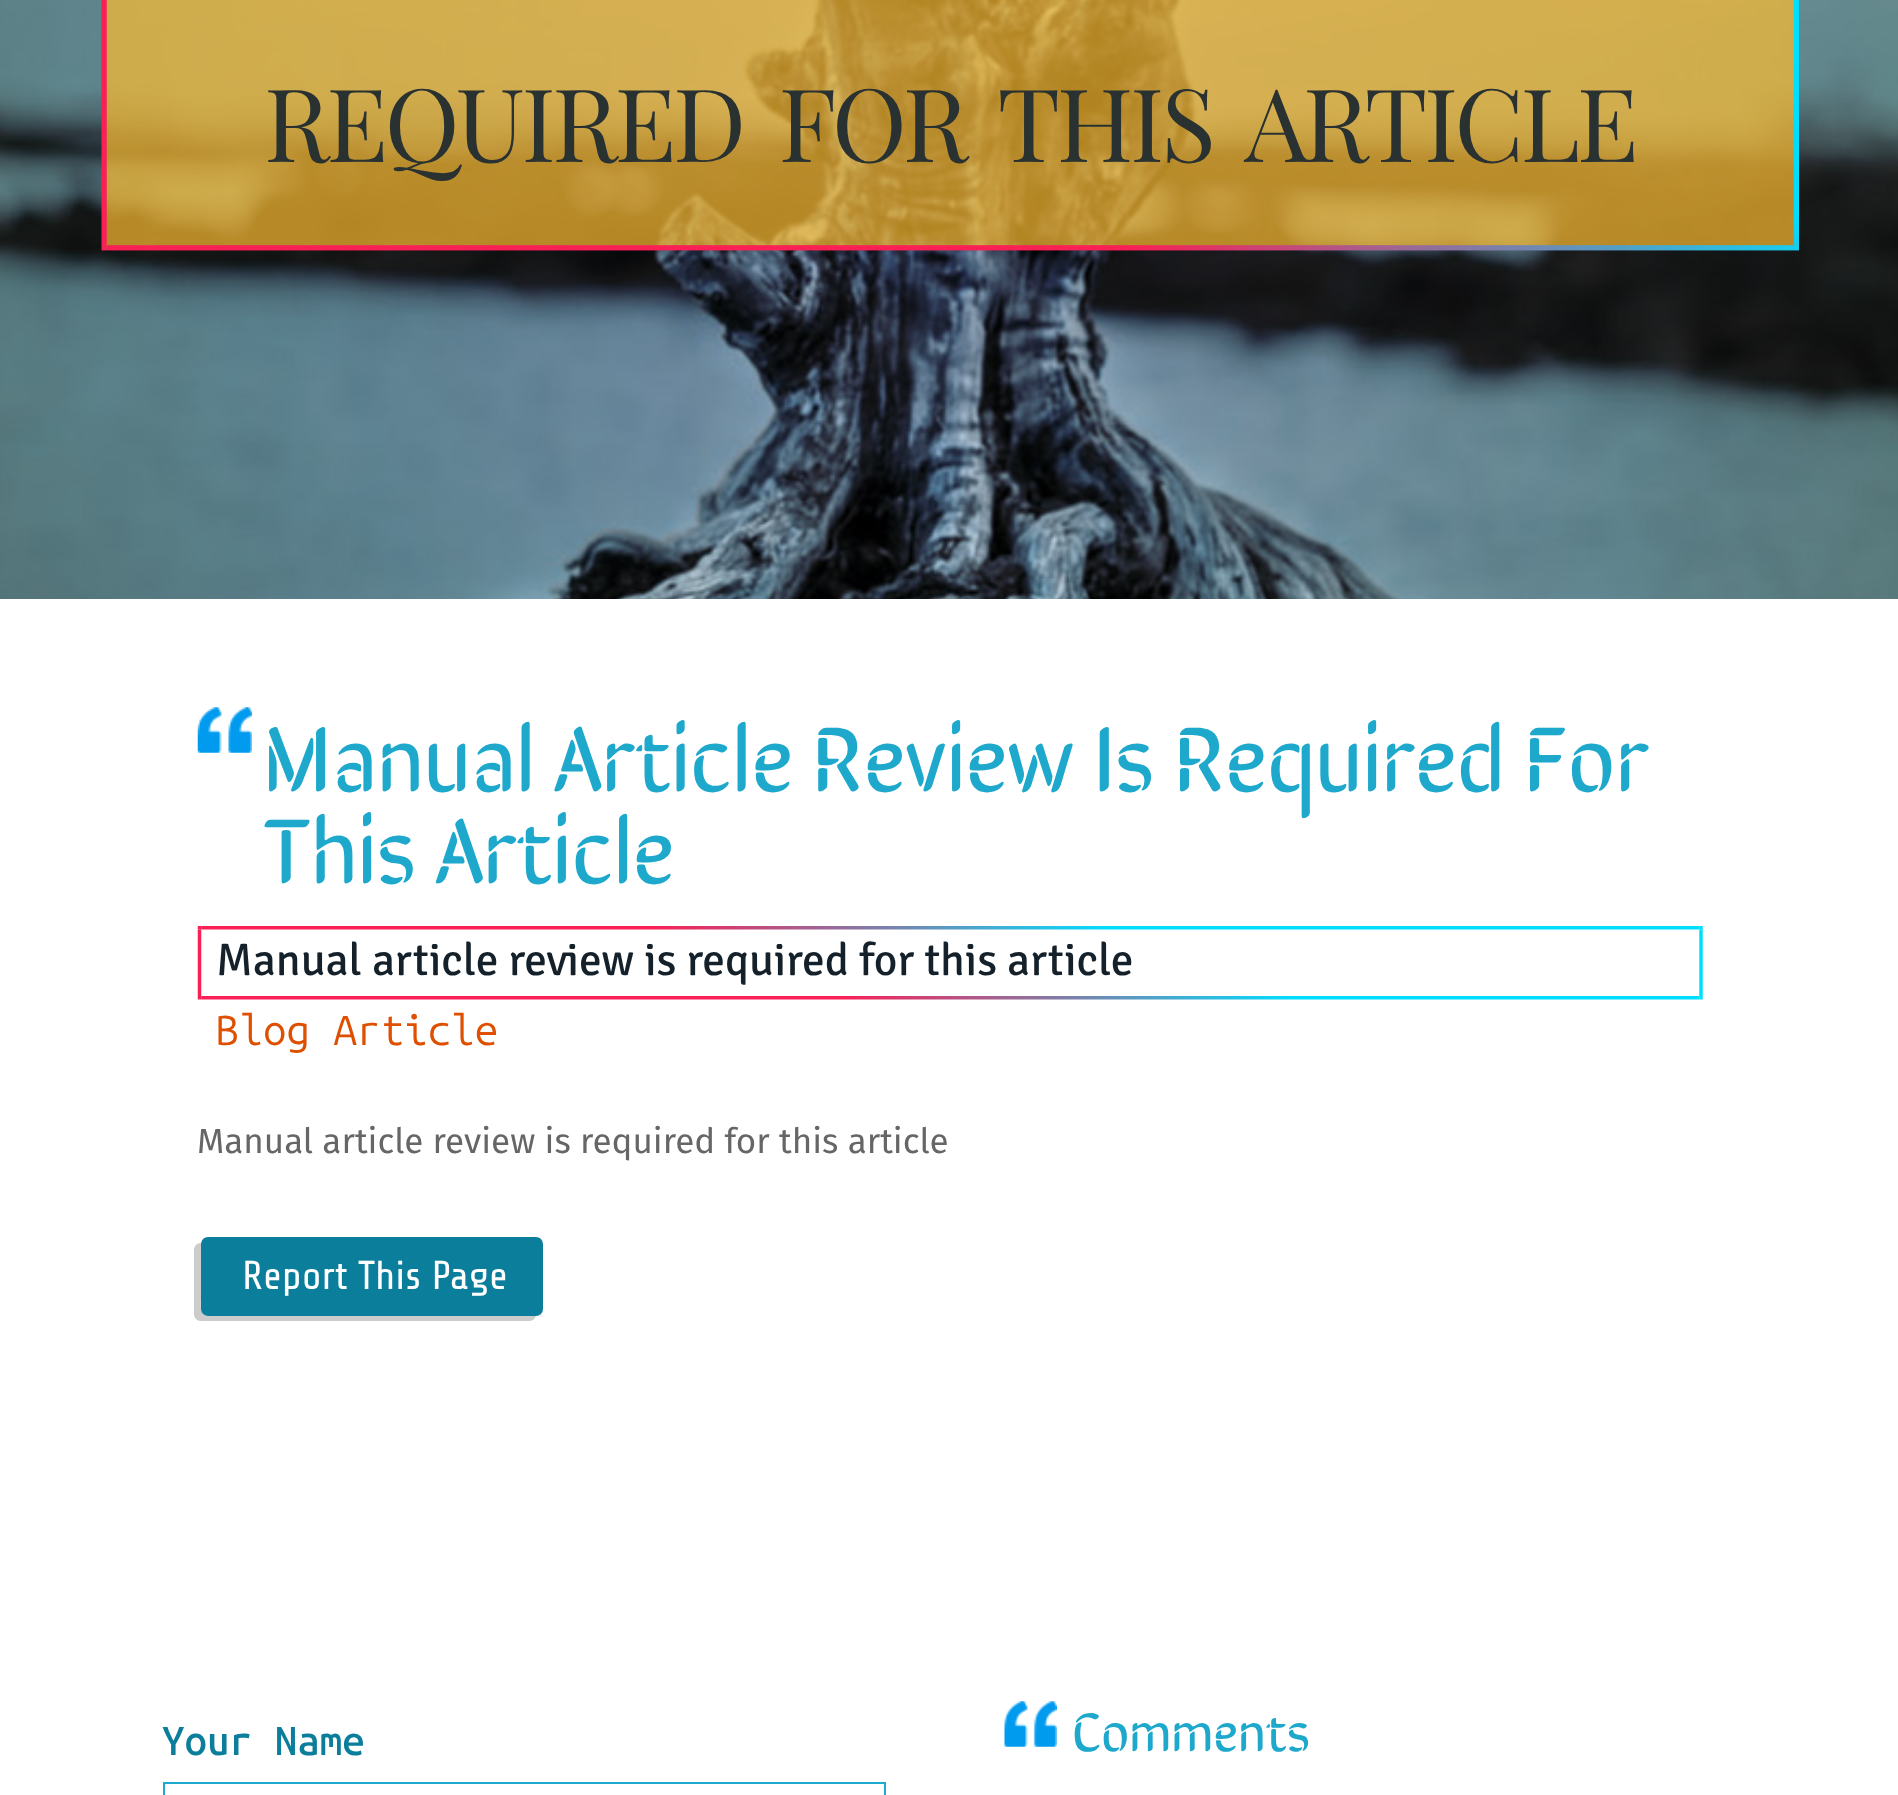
<svg xmlns="http://www.w3.org/2000/svg" width="1898" height="1795" viewBox="0 0 1898 1795">
  <rect width="100%" height="100%" fill="#fff"/>
  <image x="0" y="0" width="1898" height="599" href="img/1.png"/>
  <path d="M102 0h1697v250H102z" fill="#febc2fb3"/>
  <image x="101" y="0" width="1698" height="251" href="img/2.png"/>
  <image x="197" y="707" width="55" height="46" href="img/3.png"/>
  <image x="197" y="926" width="1506" height="74" href="img/4.png"/>
  <path d="M201 1243C197 1243 194 1246 194 1250V1314C194 1318 197 1321 201 1321H529C532 1321 535 1319 536 1316H208C199 1316 201 1304 201 1298Z" fill="#ccc"/>
  <rect x="201" y="1237" width="342" height="79" rx="7" fill="#0b7e9b"/>
  <path d="M164 1783h721v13H164z" fill="none" stroke="#1eaace" stroke-width="2"/>
  <image x="1004" y="1701" width="53" height="46" href="img/5.png"/>
  <text x="264" y="162" word-spacing="14" font-family="Playfair Display" font-size="101.5" letter-spacing="-3.5" fill="#293131">REQUIRED FOR THIS ARTICLE</text>
  <g font-family="SirinStencil" font-size="92.25" fill="#1da8cc">
    <text x="263" y="791">Manual Article Review Is Required For</text>
    <text x="263" y="883">This Article</text>
  </g>
  <text x="216" y="975" font-family="Signika" font-size="45.5" fill="#15212a">Manual article review is required for this article</text>
  <text x="216" y="1045" font-family="Ubuntu Mono" font-size="42" fill="#de5000">Blog Article</text>
  <text x="197" y="1153" font-family="Fira Sans" font-size="35" fill="#666">Manual article review is required for this article</text>
  <text x="242" y="1289" font-family="Share Tech" font-size="40.25" fill="#fff">Report This Page</text>
  <text x="162" y="1755" font-family="Ubuntu Mono" font-size="40.25" font-weight="500" fill="#0b7e9b">Your Name</text>
  <text x="1072" y="1751" font-family="SirinStencil" font-size="54.25" fill="#1da8cc">Comments</text>
</svg>
